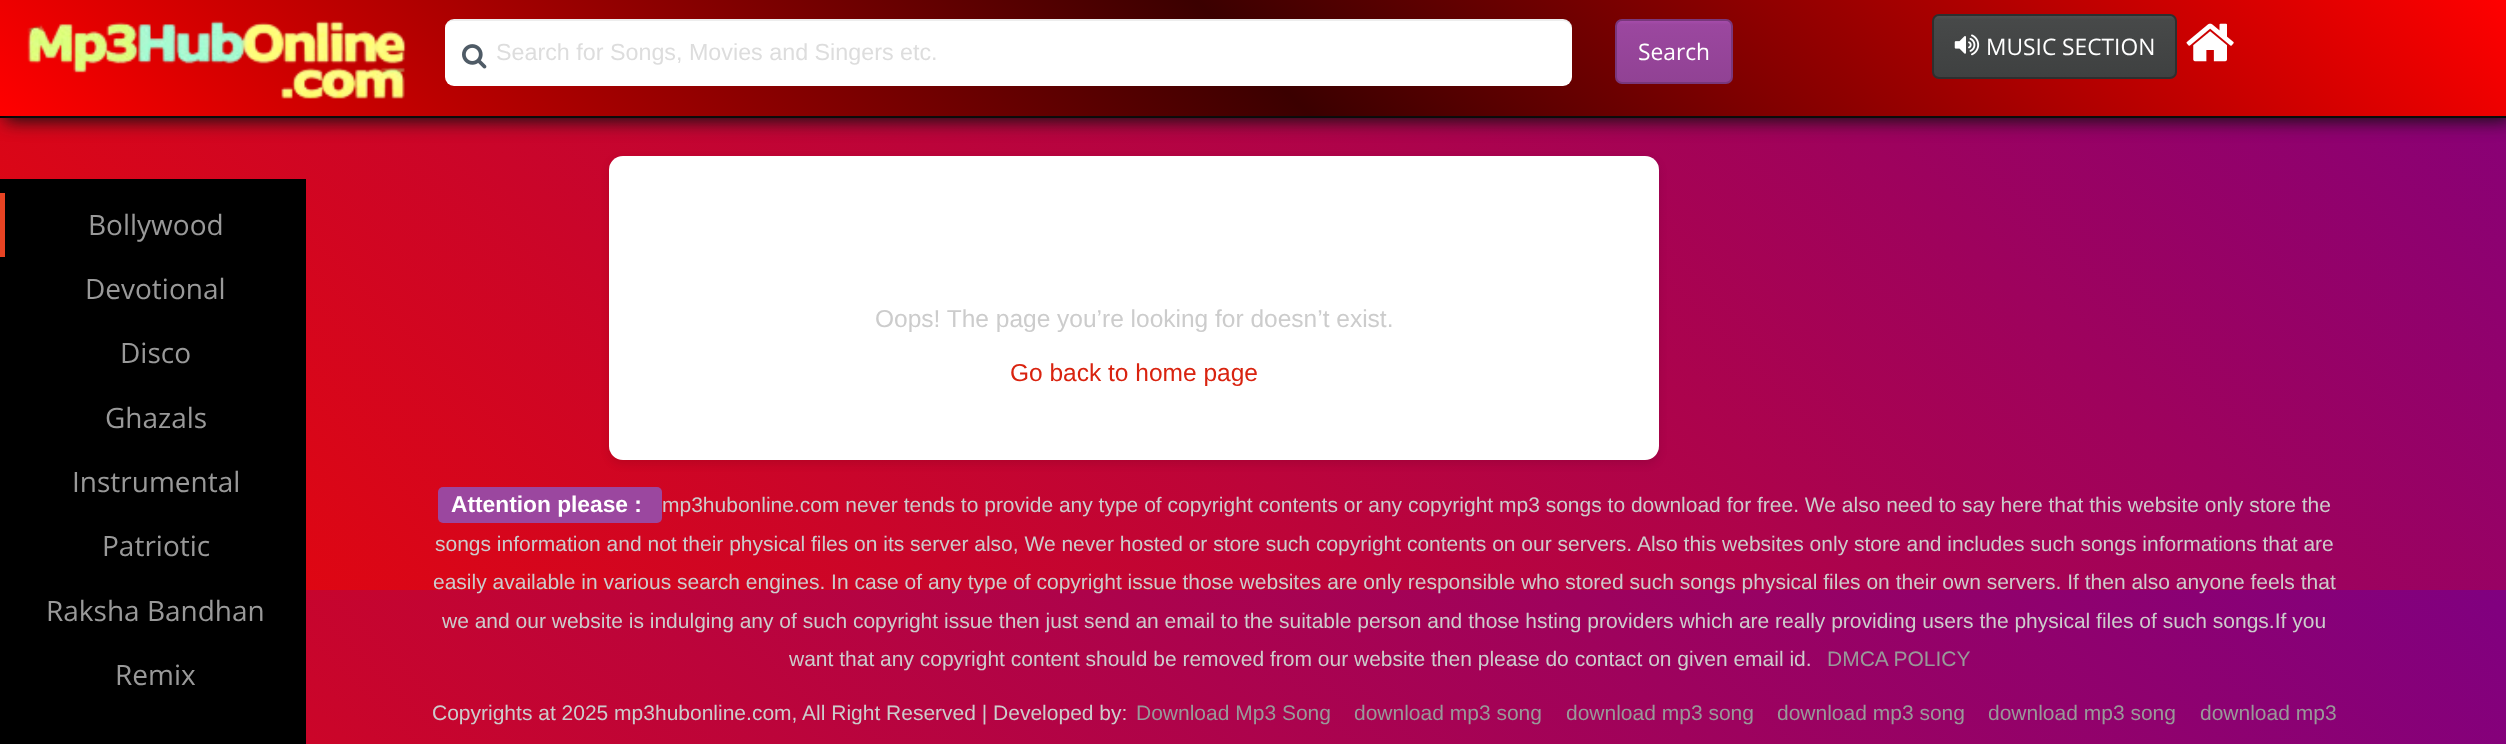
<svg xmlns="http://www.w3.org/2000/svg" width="2506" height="744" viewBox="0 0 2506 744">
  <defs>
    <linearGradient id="g1" gradientUnits="userSpaceOnUse" x1="440" y1="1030" x2="2066" y2="-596"><stop offset="0" stop-color="#e80707"/><stop offset="1" stop-color="#800080"/></linearGradient>
    <linearGradient id="g2" gradientUnits="userSpaceOnUse" x1="440" y1="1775" x2="2066" y2="150"><stop offset="0" stop-color="#e80707"/><stop offset="1" stop-color="#800080"/></linearGradient>
    <linearGradient id="g3" gradientUnits="userSpaceOnUse" x1="598" y1="713" x2="1908" y2="-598"><stop offset="0" stop-color="#f00"/><stop offset="0.5" stop-color="#3b0000"/><stop offset="1" stop-color="#f00"/></linearGradient>
    <linearGradient id="g4" gradientUnits="userSpaceOnUse" x1="1674" y1="21" x2="1674" y2="82"><stop offset="0" stop-color="#a54caa"/><stop offset="0.06" stop-color="#9b479f"/><stop offset="1" stop-color="#914294"/></linearGradient>
    <linearGradient id="g5" gradientUnits="userSpaceOnUse" x1="2055" y1="16" x2="2055" y2="77"><stop offset="0" stop-color="#4f5151"/><stop offset="0.06" stop-color="#474949"/><stop offset="1" stop-color="#3f4141"/></linearGradient>
  </defs>
  <rect width="100%" height="100%" fill="#fff"/>
  <path d="M0 118h2506v472H0z" fill="url(#g1)"/>
  <path d="M306 590h2200v154H306z" fill="url(#g2)"/>
  <path d="M0 116h2506v2H0z" fill="#000"/>
  <path d="M5 5h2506v116H5z" fill="#111" filter="blur(9px)"/>
  <path d="M0 0h2506v116H0z" fill="url(#g3)"/>
  <image x="27" y="20" width="379" height="79" href="img/1.png"/>
  <rect x="445" y="19" width="1127" height="67" rx="9" fill="#fff"/>
  <image x="462" y="44" width="25" height="25" href="img/2.png"/>
  <path d="M453 21H1563C1568 21 1572 25 1572 30V28C1572 23 1568 19 1563 19H454C450 19 447 21 446 25C447 23 450 21 453 21Z" fill="#00000012"/>
  <path d="M1617 21h114v61H1617z" fill="url(#g4)"/>
  <rect x="1616" y="20" width="116" height="63" rx="6" fill="none" stroke="#79377c" stroke-width="2"/>
  <path d="M1934 16h241v61H1934z" fill="url(#g5)"/>
  <rect x="1933" y="15" width="243" height="63" rx="6" fill="none" stroke="#2e2f2f" stroke-width="2"/>
  <image x="1954" y="34" width="26" height="22" href="img/3.png"/>
  <image x="2186" y="23" width="48" height="39" href="img/4.png"/>
  <path d="M0 179h306v565H0z" fill="#000"/>
  <path d="M0 193h5v64H0z" fill="#e84323"/>
  <rect x="609" y="159" width="1050" height="305" rx="14" fill="#0000001a" filter="blur(4.5px)"/>
  <rect x="609" y="156" width="1050" height="304" rx="14" fill="#fff"/>
  <rect x="438" y="487" width="224" height="36" rx="5" fill="#9b479f"/>
  <text x="496" y="60" font-family="Liberation Sans" font-size="23.3" fill="#ddd">Search for Songs, Movies and Singers etc.</text>
  <g font-family="Open Sans" font-size="22.75" fill="#fff">
    <text x="1638" y="60">Search</text>
    <text x="1986" y="55">MUSIC SECTION</text>
  </g>
  <g font-family="Open Sans" font-size="28" fill="#999">
    <text x="88" y="235">Bollywood</text>
    <text x="85" y="299">Devotional</text>
    <text x="120" y="363">Disco</text>
    <text x="105" y="428">Ghazals</text>
    <text x="72" y="492">Instrumental</text>
    <text x="102" y="556">Patriotic</text>
    <text x="46" y="621">Raksha Bandhan</text>
    <text x="115" y="685">Remix</text>
  </g>
  <text x="875" y="327" font-family="Liberation Sans" font-size="24.5" fill="#ccc">Oops! The page you’re looking for doesn’t exist.</text>
  <text x="1010" y="381" font-family="Liberation Sans" font-size="24.5" fill="#d9230f">Go back to home page</text>
  <text x="451" y="512" font-family="Liberation Sans" font-size="22.75" font-weight="bold" fill="#fff">Attention please :</text>
  <g font-family="Liberation Sans" font-size="21" fill="#ccc">
    <text x="662" y="512">mp3hubonline.com never tends to provide any type of copyright contents or any copyright mp3 songs to download for free. We also need to say here that this website only store the</text>
    <text x="435" y="551">songs information and not their physical files on its server also, We never hosted or store such copyright contents on our servers. Also this websites only store and includes such songs informations that are</text>
    <text x="433" y="589">easily available in various search engines. In case of any type of copyright issue those websites are only responsible who stored such songs physical files on their own servers. If then also anyone feels that</text>
    <text x="442" y="628">we and our website is indulging any of such copyright issue then just send an email to the suitable person and those hsting providers which are really providing users the physical files of such songs.If you</text>
    <text x="789" y="666">want that any copyright content should be removed from our website then please do contact on given email id.</text>
  </g>
  <text x="1827" y="666" font-family="Liberation Sans" font-size="21" fill="#999">DMCA POLICY</text>
  <text x="432" y="720" font-family="Liberation Sans" font-size="21" fill="#ccc">Copyrights at 2025 mp3hubonline.com, All Right Reserved | Developed by:</text>
  <g font-family="Liberation Sans" font-size="21" fill="#999">
    <text x="1136" y="720">Download Mp3 Song</text>
    <text x="1354" y="720">download mp3 song</text>
    <text x="1566" y="720">download mp3 song</text>
    <text x="1777" y="720">download mp3 song</text>
    <text x="1988" y="720">download mp3 song</text>
    <text x="2200" y="720">download mp3</text>
  </g>
</svg>
